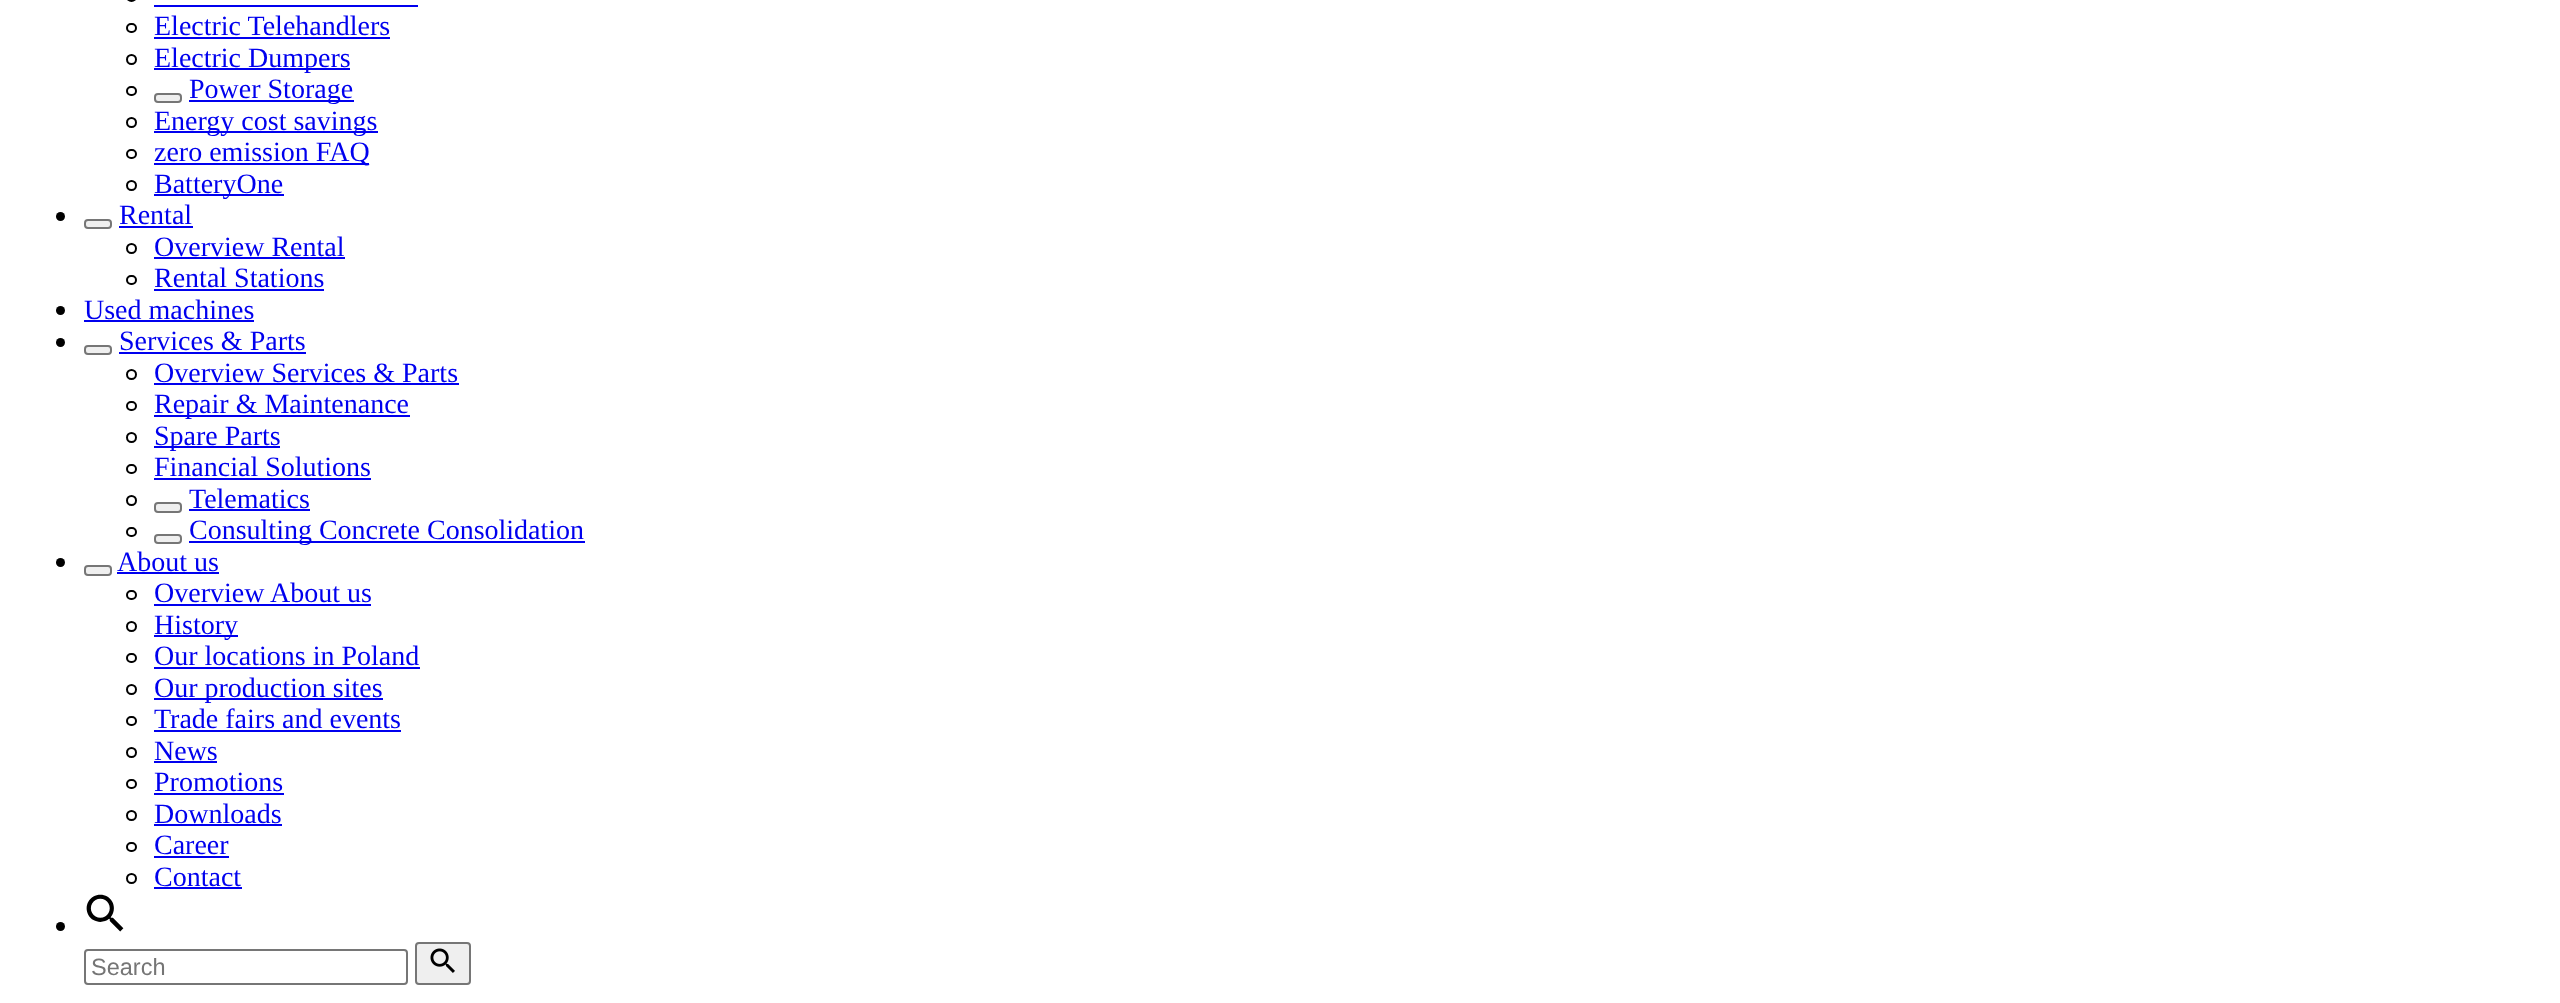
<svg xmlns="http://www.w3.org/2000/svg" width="2560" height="1003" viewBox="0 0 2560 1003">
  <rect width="100%" height="100%" fill="#fff"/>
  <rect x="127" y="-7" width="9" height="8" rx="4.5" fill="none" stroke="#000" stroke-width="2"/>
  <path d="M154 5h264v2H154z" fill="#00e"/>
  <rect x="127" y="24" width="9" height="8" rx="4" fill="none" stroke="#000" stroke-width="2"/>
  <path d="M154 37h236v2H154z" fill="#00e"/>
  <circle cx="131.5" cy="59.5" r="4.5" fill="none" stroke="#000" stroke-width="2"/>
  <path d="M154 68h196v2H154z" fill="#00e"/>
  <rect x="127" y="87" width="9" height="8" rx="4" fill="none" stroke="#000" stroke-width="2"/>
  <path d="M189 100h165v2H189z" fill="#00e"/>
  <rect x="155" y="94" width="26" height="8" rx="3" fill="#efefef" stroke="#767676" stroke-width="2"/>
  <circle cx="131.5" cy="122.5" r="4.5" fill="none" stroke="#000" stroke-width="2"/>
  <path d="M154 131h224v2H154z" fill="#00e"/>
  <rect x="127" y="150" width="9" height="8" rx="4" fill="none" stroke="#000" stroke-width="2"/>
  <path d="M154 163h215v2H154z" fill="#00e"/>
  <circle cx="131.5" cy="185.5" r="4.5" fill="none" stroke="#000" stroke-width="2"/>
  <path d="M154 194h130v2H154z" fill="#00e"/>
  <circle cx="60.5" cy="216.5" r="4.5" fill="#000"/>
  <path d="M119 226h74v2H119z" fill="#00e"/>
  <rect x="85" y="220" width="26" height="8" rx="3" fill="#efefef" stroke="#767676" stroke-width="2"/>
  <circle cx="131.5" cy="248.5" r="4.5" fill="none" stroke="#000" stroke-width="2"/>
  <path d="M154 257h191v2H154z" fill="#00e"/>
  <rect x="127" y="276" width="9" height="8" rx="4" fill="none" stroke="#000" stroke-width="2"/>
  <path d="M154 289h170v2H154z" fill="#00e"/>
  <circle cx="60.5" cy="310.5" r="4.5" fill="#000"/>
  <path d="M84 320h170v2H84z" fill="#00e"/>
  <circle cx="60.5" cy="342.5" r="4.5" fill="#000"/>
  <path d="M119 352h187v2H119z" fill="#00e"/>
  <rect x="85" y="346" width="26" height="8" rx="3" fill="#efefef" stroke="#767676" stroke-width="2"/>
  <circle cx="131.5" cy="374.5" r="4.5" fill="none" stroke="#000" stroke-width="2"/>
  <path d="M154 383h305v2H154z" fill="#00e"/>
  <rect x="127" y="402" width="9" height="8" rx="4" fill="none" stroke="#000" stroke-width="2"/>
  <path d="M154 415h256v2H154z" fill="#00e"/>
  <circle cx="131.5" cy="437.5" r="4.5" fill="none" stroke="#000" stroke-width="2"/>
  <path d="M154 446h126v2H154z" fill="#00e"/>
  <rect x="127" y="465" width="9" height="8" rx="4" fill="none" stroke="#000" stroke-width="2"/>
  <path d="M154 478h217v2H154z" fill="#00e"/>
  <circle cx="131.5" cy="500.5" r="4.5" fill="none" stroke="#000" stroke-width="2"/>
  <path d="M189 509h121v2H189z" fill="#00e"/>
  <rect x="155" y="503" width="26" height="9" rx="3" fill="#efefef" stroke="#767676" stroke-width="2"/>
  <rect x="127" y="528" width="9" height="8" rx="4" fill="none" stroke="#000" stroke-width="2"/>
  <path d="M189 541h396v2H189z" fill="#00e"/>
  <rect x="155" y="535" width="26" height="8" rx="3" fill="#efefef" stroke="#767676" stroke-width="2"/>
  <circle cx="60.5" cy="562.5" r="4.5" fill="#000"/>
  <path d="M117 572h102v2H117z" fill="#00e"/>
  <rect x="85" y="566" width="26" height="9" rx="3" fill="#efefef" stroke="#767676" stroke-width="2"/>
  <rect x="127" y="591" width="9" height="8" rx="4" fill="none" stroke="#000" stroke-width="2"/>
  <path d="M154 604h217v2H154z" fill="#00e"/>
  <circle cx="131.5" cy="626.5" r="4.5" fill="none" stroke="#000" stroke-width="2"/>
  <path d="M154 635h84v2H154z" fill="#00e"/>
  <rect x="127" y="654" width="9" height="8" rx="4" fill="none" stroke="#000" stroke-width="2"/>
  <path d="M154 667h266v2H154z" fill="#00e"/>
  <circle cx="131.5" cy="689.5" r="4.5" fill="none" stroke="#000" stroke-width="2"/>
  <path d="M154 698h229v2H154z" fill="#00e"/>
  <rect x="127" y="717" width="9" height="8" rx="4" fill="none" stroke="#000" stroke-width="2"/>
  <path d="M154 730h247v2H154z" fill="#00e"/>
  <circle cx="131.5" cy="752.5" r="4.5" fill="none" stroke="#000" stroke-width="2"/>
  <path d="M154 761h63v2H154z" fill="#00e"/>
  <rect x="127" y="780" width="9" height="8" rx="4" fill="none" stroke="#000" stroke-width="2"/>
  <path d="M154 793h130v2H154z" fill="#00e"/>
  <circle cx="131.5" cy="815.5" r="4.5" fill="none" stroke="#000" stroke-width="2"/>
  <path d="M154 824h128v2H154z" fill="#00e"/>
  <rect x="127" y="843" width="9" height="8" rx="4" fill="none" stroke="#000" stroke-width="2"/>
  <path d="M154 856h75v2H154z" fill="#00e"/>
  <circle cx="131.5" cy="878.5" r="4.5" fill="none" stroke="#000" stroke-width="2"/>
  <path d="M154 887h88v2H154z" fill="#00e"/>
  <circle cx="60.5" cy="926.5" r="4.5" fill="#000"/>
  <image x="86" y="894" width="38" height="38" href="img/1.png"/>
  <rect x="85" y="950" width="322" height="34" rx="3" fill="none" stroke="#767676" stroke-width="2"/>
  <rect x="416" y="943" width="54" height="41" rx="3" fill="#efefef" stroke="#767676" stroke-width="2"/>
  <image x="430" y="948" width="25" height="25" href="img/2.png"/>
  <g font-family="Liberation Serif" font-size="28" fill="#00e">
    <text x="154" y="35">Electric Telehandlers</text>
    <text x="154" y="67">Electric Dumpers</text>
    <text x="189" y="98">Power Storage</text>
    <text x="154" y="130">Energy cost savings</text>
    <text x="154" y="161">zero emission FAQ</text>
    <text x="154" y="193">BatteryOne</text>
    <text x="119" y="224">Rental</text>
    <text x="154" y="256">Overview Rental</text>
    <text x="154" y="287">Rental Stations</text>
    <text x="84" y="319">Used machines</text>
    <text x="119" y="350">Services &amp; Parts</text>
    <text x="154" y="382">Overview Services &amp; Parts</text>
    <text x="154" y="413">Repair &amp; Maintenance</text>
    <text x="154" y="445">Spare Parts</text>
    <text x="154" y="476">Financial Solutions</text>
    <text x="189" y="508">Telematics</text>
    <text x="189" y="539">Consulting Concrete Consolidation</text>
    <text x="117" y="571">About us</text>
    <text x="154" y="602">Overview</text>
    <text x="270" y="602">About us</text>
    <text x="154" y="634">History</text>
    <text x="154" y="665">Our locations in Poland</text>
    <text x="154" y="697">Our production sites</text>
    <text x="154" y="728">Trade fairs and events</text>
    <text x="154" y="760">News</text>
    <text x="154" y="791">Promotions</text>
    <text x="154" y="823">Downloads</text>
    <text x="154" y="854">Career</text>
    <text x="154" y="886">Contact</text>
  </g>
  <text x="91" y="975" font-family="Liberation Sans" font-size="23.5" fill="#757575">Search</text>
</svg>
